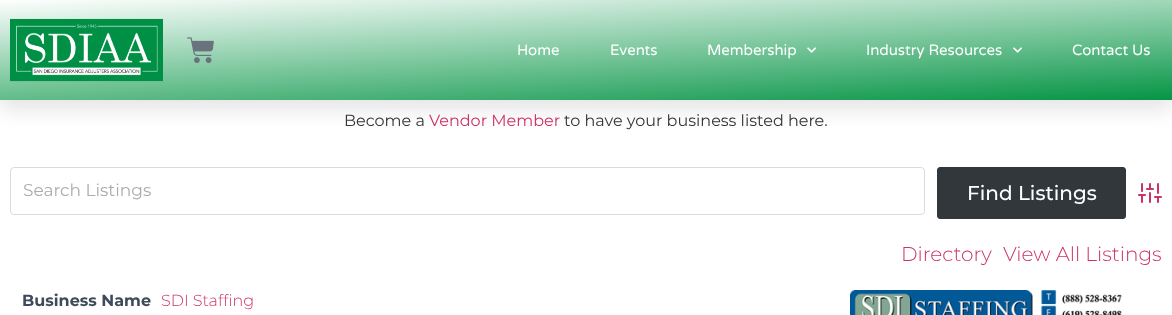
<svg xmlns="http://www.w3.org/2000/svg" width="1172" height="315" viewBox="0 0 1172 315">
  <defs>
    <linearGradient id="g1" gradientUnits="userSpaceOnUse" x1="590" y1="130" x2="582" y2="-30"><stop offset="0" stop-color="#049444"/><stop offset="1" stop-color="#fff"/></linearGradient>
  </defs>
  <rect width="100%" height="100%" fill="#fff"/>
  <path d="M0 10h1172v100H0z" fill="#0000001a" filter="blur(10px)"/>
  <path d="M0 0h1172v100H0z" fill="url(#g1)"/>
  <image x="10" y="18" width="153" height="64" href="img/1.png"/>
  <image x="187" y="37" width="27" height="26" href="img/2.png"/>
  <image x="807" y="47" width="9" height="6" href="img/3.png"/>
  <image x="1013" y="47" width="9" height="6" href="img/4.png"/>
  <rect x="10.5" y="167.5" width="914" height="47" rx="3.5" fill="none" stroke="#d9dbde"/>
  <rect x="937.5" y="167.5" width="188" height="51" rx="2.5" fill="#32373c" stroke="#32373c"/>
  <image x="1138" y="183" width="24" height="20" href="img/5.png"/>
  <image x="850" y="290" width="272" height="25" href="img/6.png"/>
  <g font-family="Varela Round" font-size="15" fill="#fff">
    <text x="517" y="55">Home</text>
    <text x="610" y="55">Events</text>
    <text x="707" y="55">Membership</text>
    <text x="866" y="55">Industry Resources</text>
    <text x="1072" y="55">Contact Us</text>
  </g>
  <text x="344" y="126" font-family="Montserrat" font-size="16" fill="#353535">Become a</text>
  <text x="429" y="126" font-family="Montserrat" font-size="16" fill="#c36">Vendor Member</text>
  <text x="564" y="126" font-family="Montserrat" font-size="16" fill="#353535">to have your business listed here.</text>
  <text x="23" y="196" font-family="Montserrat" font-size="17" fill="#acacac">Search Listings</text>
  <text x="967" y="200" font-family="Montserrat" font-size="20" font-weight="500" fill="#fff">Find Listings</text>
  <g font-family="Montserrat" font-size="20" font-weight="300" fill="#c36">
    <text x="901" y="261">Directory</text>
    <text x="1003" y="261">View All Listings</text>
  </g>
  <text x="22" y="306" font-family="Montserrat" font-size="16" font-weight="bold" fill="#3f4b5b">Business Name</text>
  <text x="161" y="306" font-family="Montserrat" font-size="16" font-weight="300" fill="#c36">SDI Staffing</text>
</svg>
